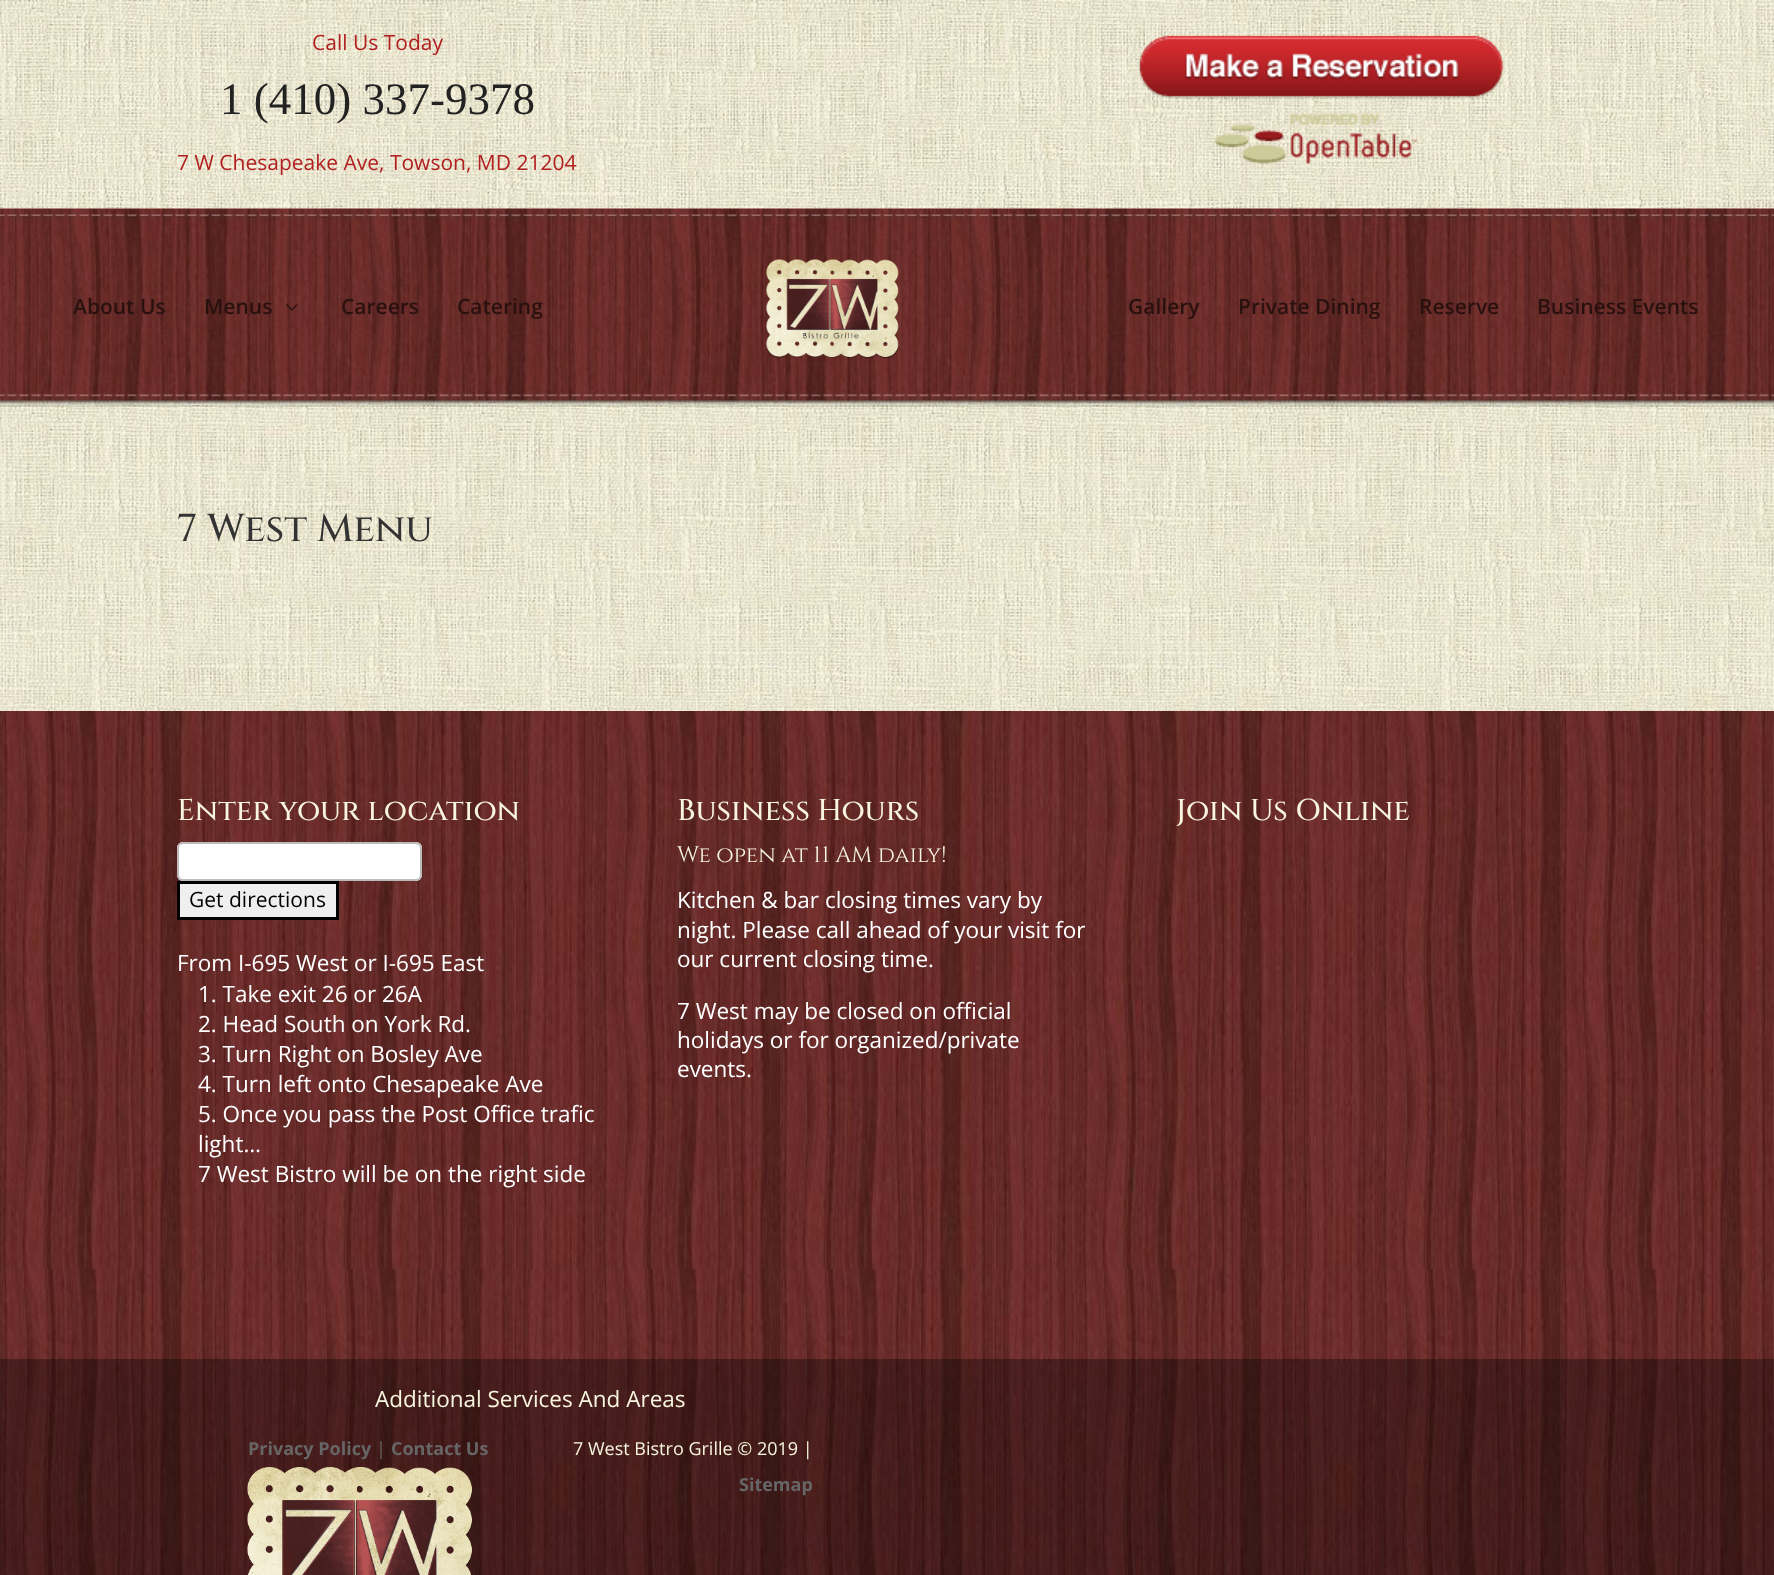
<svg xmlns="http://www.w3.org/2000/svg" width="1774" height="1575" viewBox="0 0 1774 1575">
  <rect width="100%" height="100%" fill="#fff"/>
  <image x="0" y="0" width="1774" height="209" href="img/1.png"/>
  <image x="1138" y="35" width="366" height="129" href="img/2.png"/>
  <image x="0" y="405" width="1774" height="306" href="img/6.png"/>
  <path d="M0 405V407H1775V210H1774V405Z" fill="#0000001a"/>
  <image x="0" y="208" width="1774" height="197" href="img/3.png"/>
  <image x="286" y="304" width="12" height="7" href="img/4.png"/>
  <image x="766" y="259" width="133" height="100" href="img/5.png"/>
  <image x="0" y="711" width="1774" height="864" href="img/7.png"/>
  <rect x="177" y="842" width="245" height="39" rx="6" fill="#fff"/>
  <path d="M183 844H416C418 844 420 847 420 849V848C420 845 418 843 415 843H184C182 843 180 844 179 846C180 845 182 844 183 844Z" fill="#ececec"/>
  <rect x="178" y="843" width="243" height="37" rx="5" fill="none" stroke="#bbb" stroke-width="2"/>
  <path d="M178.5 882.5h159v36H178.5z" fill="#efefef" stroke="#000" stroke-width="3"/>
  <path d="M0 1359h1774v216H0z" fill="#00000052"/>
  <image x="247" y="1467" width="225" height="108" href="img/8.png"/>
  <text x="312" y="50" font-family="Open Sans" font-size="21" fill="#b11f1f">Call Us Today</text>
  <text x="220" y="114" font-family="Liberation Serif" font-size="45" fill="#222">1 (410) 337-9378</text>
  <text x="177" y="170" font-family="Open Sans" font-size="21" fill="#b11f1f">7 W Chesapeake Ave, Towson, MD 21204</text>
  <g font-family="Open Sans" font-size="21" font-weight="600" fill="#291110">
    <text x="73" y="314">About Us</text>
    <text x="204" y="314">Menus</text>
    <text x="341" y="314">Careers</text>
    <text x="457" y="314">Catering</text>
    <text x="1128" y="314">Gallery</text>
    <text x="1238" y="314">Private Dining</text>
    <text x="1419" y="314">Reserve</text>
    <text x="1537" y="314">Business Events</text>
  </g>
  <text x="177" y="541" font-family="Cinzel" font-size="39" font-weight="500" fill="#333">7 West Menu</text>
  <text x="177" y="820" font-family="Cinzel" font-size="30" font-weight="500" fill="#f7f5dd">Enter your location</text>
  <text x="189" y="907" font-family="Open Sans" font-size="21" fill="#000">Get directions</text>
  <g font-family="Open Sans" font-size="22.5" fill="#fff">
    <text x="177" y="971">From I-695 West or I-695 East</text>
    <text x="198" y="1002">1. Take exit 26 or 26A</text>
    <text x="198" y="1032">2. Head South on York Rd.</text>
    <text x="198" y="1062">3. Turn Right on Bosley Ave</text>
    <text x="198" y="1092">4. Turn left onto Chesapeake Ave</text>
    <text x="198" y="1122">5. Once you pass the Post Office trafic</text>
    <text x="198" y="1152">light…</text>
    <text x="198" y="1182">7 West Bistro will be on the right side</text>
  </g>
  <text x="677" y="820" font-family="Cinzel" font-size="30" font-weight="500" fill="#f7f5dd">Business Hours</text>
  <text x="677" y="862" font-family="Cinzel" font-size="22.5" fill="#f7f5dd">We open at 11 AM daily!</text>
  <g font-family="Open Sans" font-size="22.5" fill="#fff">
    <text x="677" y="908">Kitchen &amp; bar closing times vary by</text>
    <text x="677" y="938">night. Please call ahead of your visit for</text>
    <text x="677" y="967">our current closing time.</text>
    <text x="677" y="1019">7 West may be closed on official</text>
    <text x="677" y="1048">holidays or for organized/private</text>
    <text x="677" y="1077">events.</text>
  </g>
  <text x="1176" y="820" font-family="Cinzel" font-size="30" font-weight="500" fill="#f7f5dd">Join Us Online</text>
  <text x="375" y="1407" font-family="Open Sans" font-size="22.5" fill="#f7f5dd">Additional Services And Areas</text>
  <text x="248" y="1455" font-family="Open Sans" font-size="18" font-weight="bold" fill="#666">Privacy Policy</text>
  <text x="376" y="1455" font-family="Open Sans" font-size="18" fill="#666">|</text>
  <text x="391" y="1455" font-family="Open Sans" font-size="18" font-weight="bold" fill="#666">Contact Us</text>
  <text x="573" y="1455" font-family="Open Sans" font-size="18" fill="#f7f5dd">7 West Bistro Grille © 2019 |</text>
  <text x="739" y="1491" font-family="Open Sans" font-size="18" font-weight="bold" fill="#666">Sitemap</text>
</svg>
